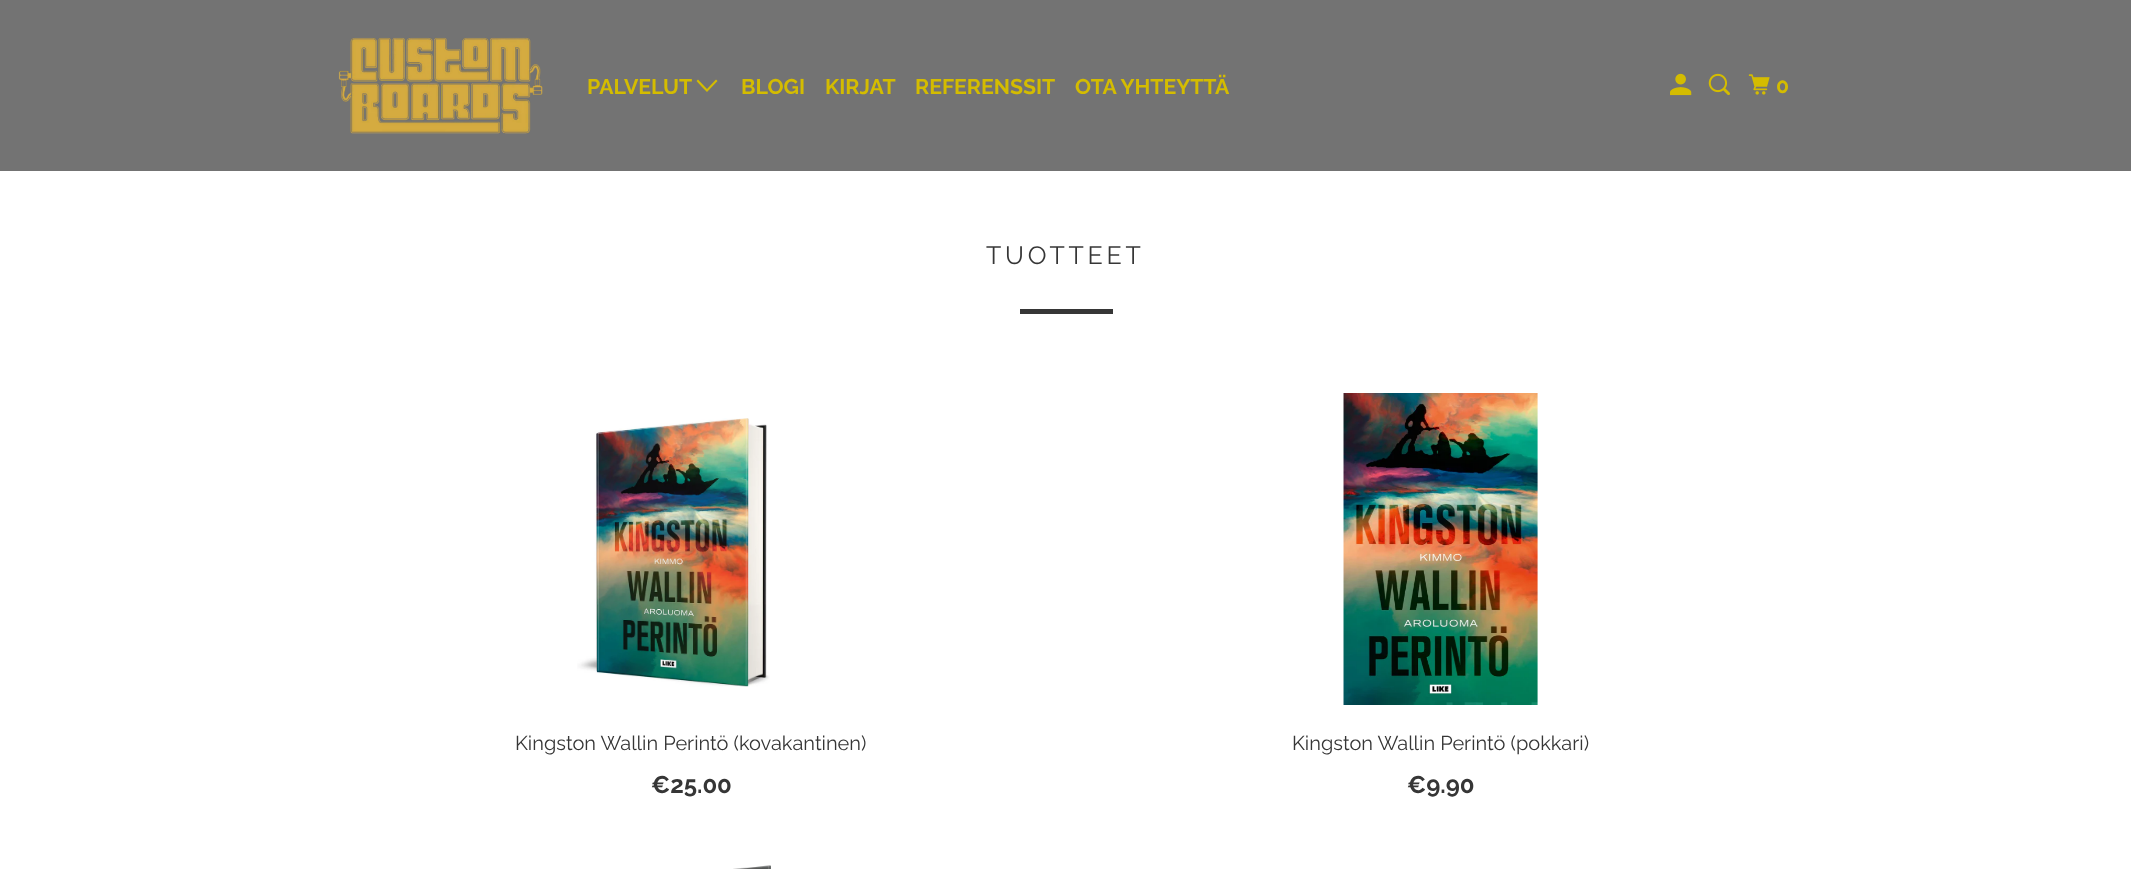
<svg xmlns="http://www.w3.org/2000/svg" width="2131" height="869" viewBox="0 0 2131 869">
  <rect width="100%" height="100%" fill="#fff"/>
  <path d="M0 0h2131v171H0z" fill="#737373"/>
  <image x="338" y="37" width="205" height="97" href="img/1.png"/>
  <path d="M701.5 86.5L696.5 81L698 79.5L707 89L716 79.5L717.5 81L707 92Z" fill="#d4bc00"/>
  <image x="1670" y="73" width="22" height="23" href="img/2.png"/>
  <image x="1708" y="73" width="22" height="22" href="img/3.png"/>
  <image x="1748" y="74" width="22" height="21" href="img/4.png"/>
  <path d="M1020 309h93v5H1020z" fill="#363636"/>
  <image x="577" y="418" width="193" height="269" href="img/5.png"/>
  <image x="1343" y="393" width="195" height="312" href="img/6.png"/>
  <image x="733" y="865" width="38" height="4" href="img/7.png"/>
  <g font-family="Raleway" font-size="21.25" font-weight="bold" fill="#d4bc00">
    <text x="587" y="94">PALVELUT</text>
    <text x="741" y="94">BLOGI</text>
    <text x="825" y="94">KIRJAT</text>
    <text x="915" y="94">REFERENSSIT</text>
    <text x="1075" y="94">OTA YHTEYTTÄ</text>
    <text x="1776" y="93">0</text>
  </g>
  <text x="986" y="264" font-family="Raleway" font-size="25" letter-spacing="3.75" fill="#363636">TUOTTEET</text>
  <text x="515" y="750" font-family="Raleway" font-size="20" fill="#363636">Kingston Wallin Perintö (kovakantinen)</text>
  <text x="651" y="793" font-family="Raleway" font-size="24" font-weight="bold" fill="#363636">€25.00</text>
  <text x="1292" y="750" font-family="Raleway" font-size="20" fill="#363636">Kingston Wallin Perintö (pokkari)</text>
  <text x="1407" y="793" font-family="Raleway" font-size="24" font-weight="bold" fill="#363636">€9.90</text>
</svg>
